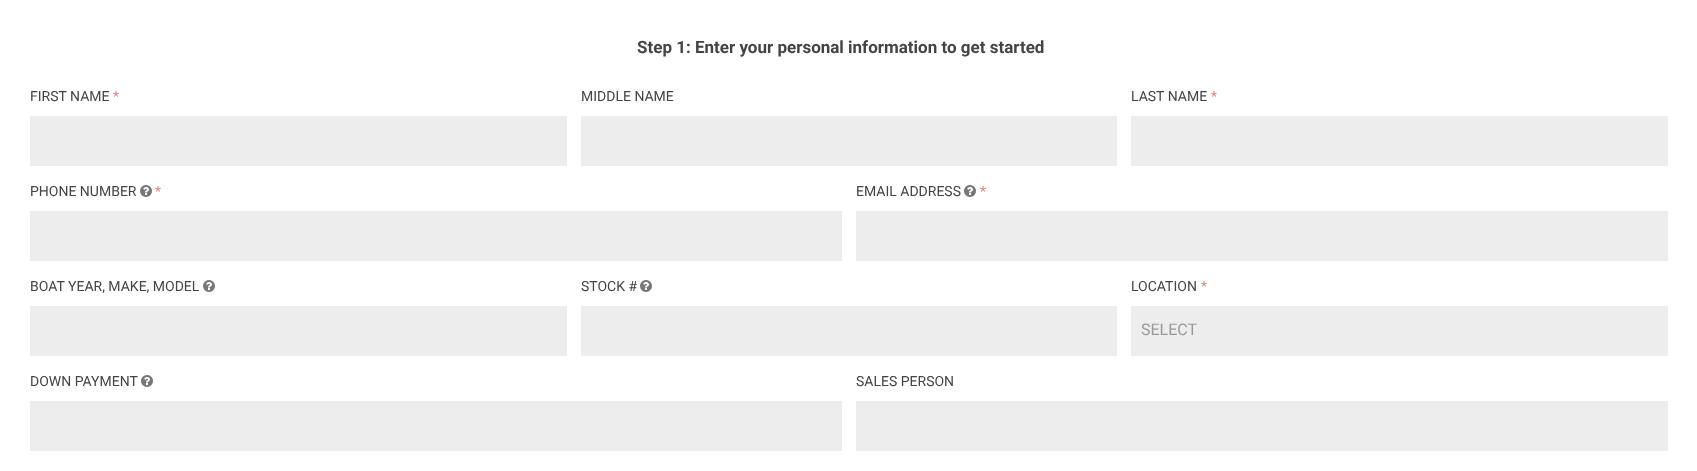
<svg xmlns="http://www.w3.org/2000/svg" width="1697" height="471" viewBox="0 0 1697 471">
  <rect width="100%" height="100%" fill="#fff"/>
  <path d="M30 116h537v50H30z" fill="#ededed"/>
  <path d="M581 116h536v50H581z" fill="#ededed"/>
  <path d="M1131 116h537v50H1131z" fill="#ededed"/>
  <image x="140" y="185" width="12" height="12" href="img/1.png"/>
  <path d="M30 211h812v50H30z" fill="#ededed"/>
  <image x="964" y="185" width="12" height="12" href="img/1.png"/>
  <path d="M856 211h812v50H856z" fill="#ededed"/>
  <image x="203" y="280" width="12" height="12" href="img/1.png"/>
  <path d="M30 306h537v50H30z" fill="#ededed"/>
  <image x="640" y="280" width="12" height="12" href="img/1.png"/>
  <path d="M581 306h536v50H581z" fill="#ededed"/>
  <path d="M1131 306h537v50H1131z" fill="#ededed"/>
  <image x="141" y="375" width="12" height="12" href="img/1.png"/>
  <path d="M30 401h812v50H30z" fill="#ededed"/>
  <path d="M856 401h812v50H856z" fill="#ededed"/>
  <text x="637" y="53" font-family="Roboto" font-size="17" font-weight="bold" fill="#444">Step 1: Enter your personal information to get started</text>
  <text x="30" y="101" font-family="Roboto" font-size="14" fill="#444">FIRST NAME</text>
  <text x="113" y="101" font-family="Roboto" font-size="14" fill="#dd817b">*</text>
  <g font-family="Roboto" font-size="14" fill="#444">
    <text x="581" y="101">MIDDLE NAME</text>
    <text x="1131" y="101">LAST NAME</text>
  </g>
  <text x="1211" y="101" font-family="Roboto" font-size="14" fill="#dd817b">*</text>
  <text x="30" y="196" font-family="Roboto" font-size="14" fill="#444">PHONE NUMBER</text>
  <text x="155" y="196" font-family="Roboto" font-size="14" fill="#dd817b">*</text>
  <text x="856" y="196" font-family="Roboto" font-size="14" fill="#444">EMAIL ADDRESS</text>
  <text x="980" y="196" font-family="Roboto" font-size="14" fill="#dd817b">*</text>
  <g font-family="Roboto" font-size="14" fill="#444">
    <text x="30" y="291">BOAT YEAR, MAKE, MODEL</text>
    <text x="581" y="291">STOCK #</text>
    <text x="1131" y="291">LOCATION</text>
  </g>
  <text x="1201" y="291" font-family="Roboto" font-size="14" fill="#dd817b">*</text>
  <text x="1141" y="335" font-family="Roboto" font-size="16" fill="#999">SELECT</text>
  <g font-family="Roboto" font-size="14" fill="#444">
    <text x="30" y="386">DOWN PAYMENT</text>
    <text x="856" y="386">SALES PERSON</text>
  </g>
</svg>
